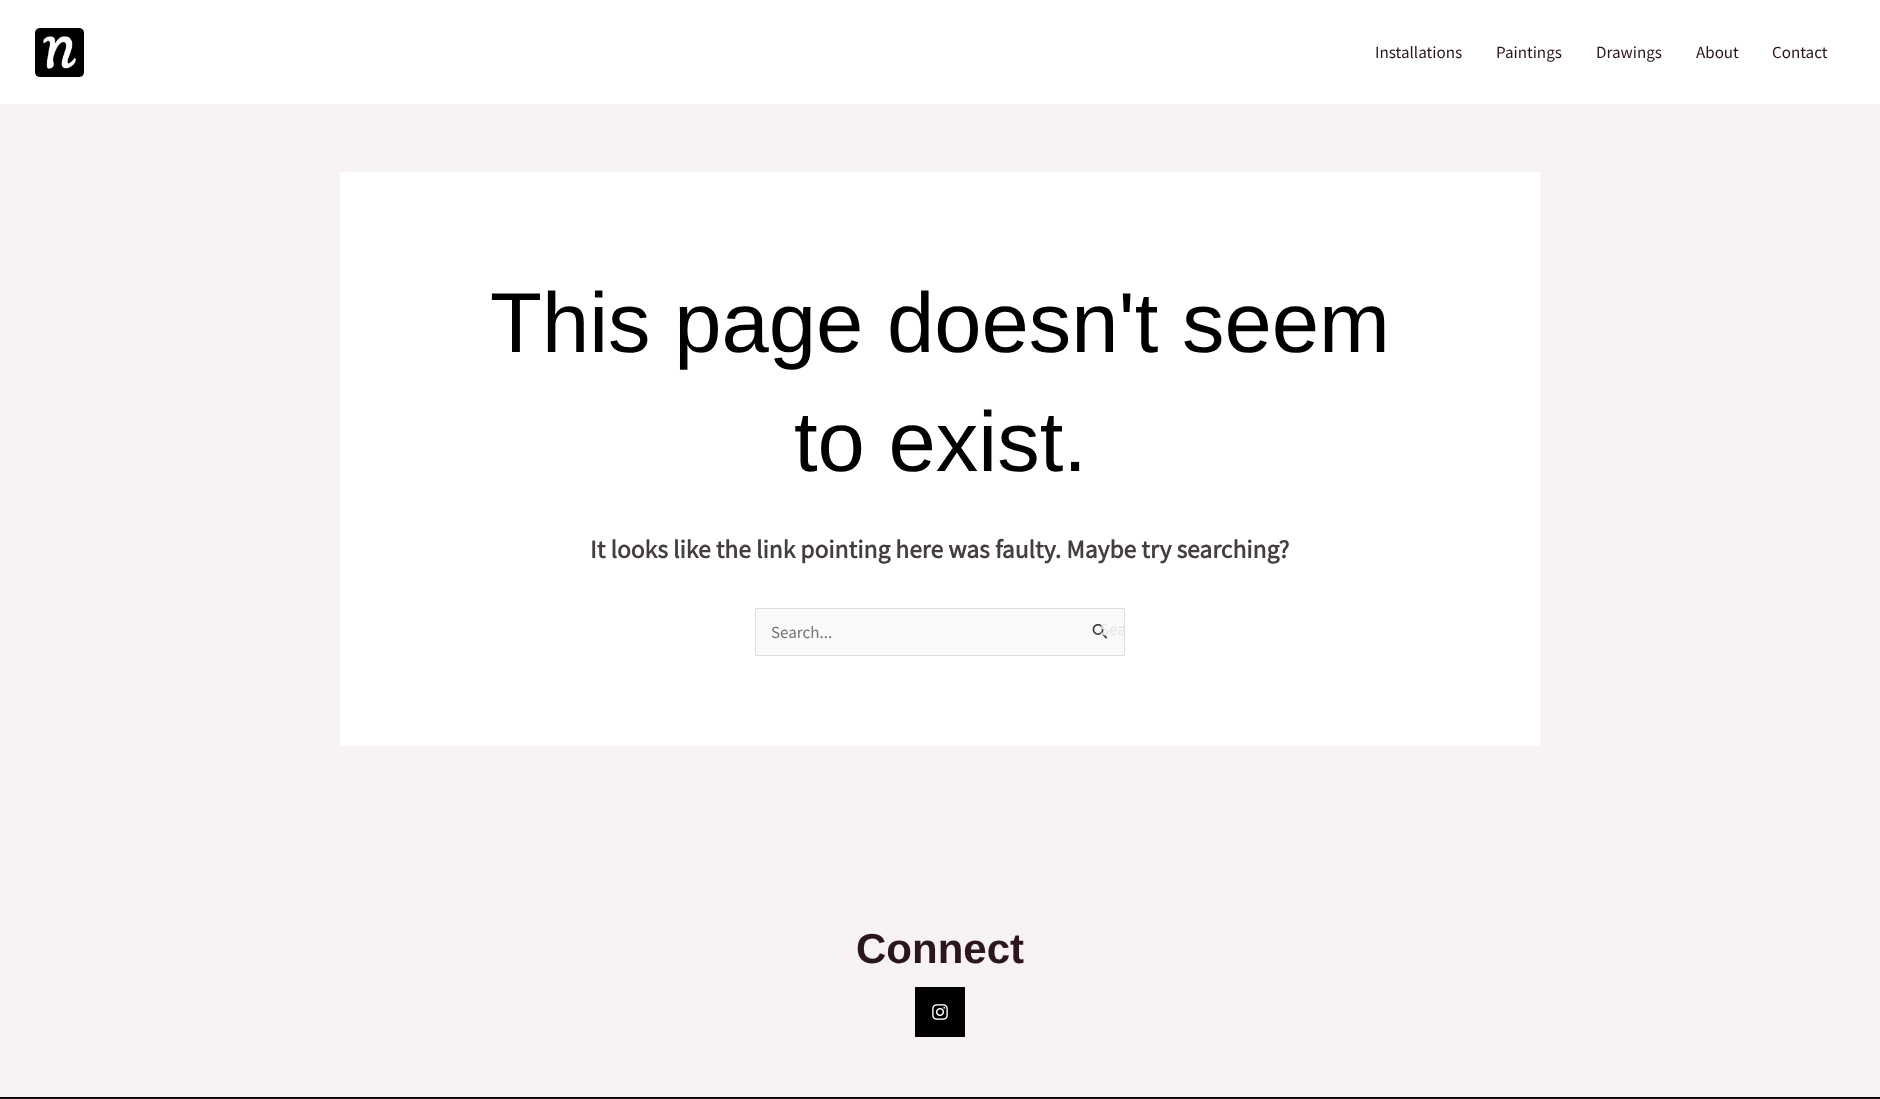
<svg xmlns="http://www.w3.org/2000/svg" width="1880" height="1099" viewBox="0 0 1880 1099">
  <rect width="100%" height="100%" fill="#f7f3f5"/>
  <path d="M0 0h1880v104H0z" fill="#fff"/>
  <image x="35" y="28" width="49" height="49" href="img/1.png"/>
  <path d="M340 172h1200v574H340z" fill="#fff"/>
  <rect x="755.5" y="608.5" width="369" height="47" rx="1.5" fill="#fafafa" stroke="#ddd"/>
  <image x="1092" y="623" width="16" height="16" href="img/2.png"/>
  <path d="M915 987h50v50H915z" fill="#000"/>
  <image x="932" y="1004" width="16" height="16" href="img/3.png"/>
  <path d="M0 1098h1880v1H0z" fill="#2b161b"/>
  <path d="M0 1097h1880v1H0z" fill="#000"/>
  <g font-family="Source Sans Pro" font-size="17" fill="#2b161b">
    <text x="1375" y="58">Installations</text>
    <text x="1496" y="58">Paintings</text>
    <text x="1596" y="58">Drawings</text>
    <text x="1696" y="58">About</text>
    <text x="1772" y="58">Contact</text>
  </g>
  <g font-family="Liberation Sans" font-size="85" fill="#000">
    <text x="490" y="352">This page doesn't seem</text>
    <text x="794" y="471">to exist.</text>
  </g>
  <text x="590" y="558" font-family="Source Sans Pro" font-size="25.5" font-weight="bold" fill="#453e3e">It looks like the link pointing here was faulty. Maybe try searching?</text>
  <text x="771" y="638" font-family="Source Sans Pro" font-size="17" fill="#757575">Search...</text>
  <text x="1100" y="635" font-family="Source Sans Pro" font-size="17" fill="#e7e6e6">Sea</text>
  <text x="856" y="963" font-family="Liberation Sans" font-size="42" font-weight="bold" fill="#2b161b">Connect</text>
</svg>
